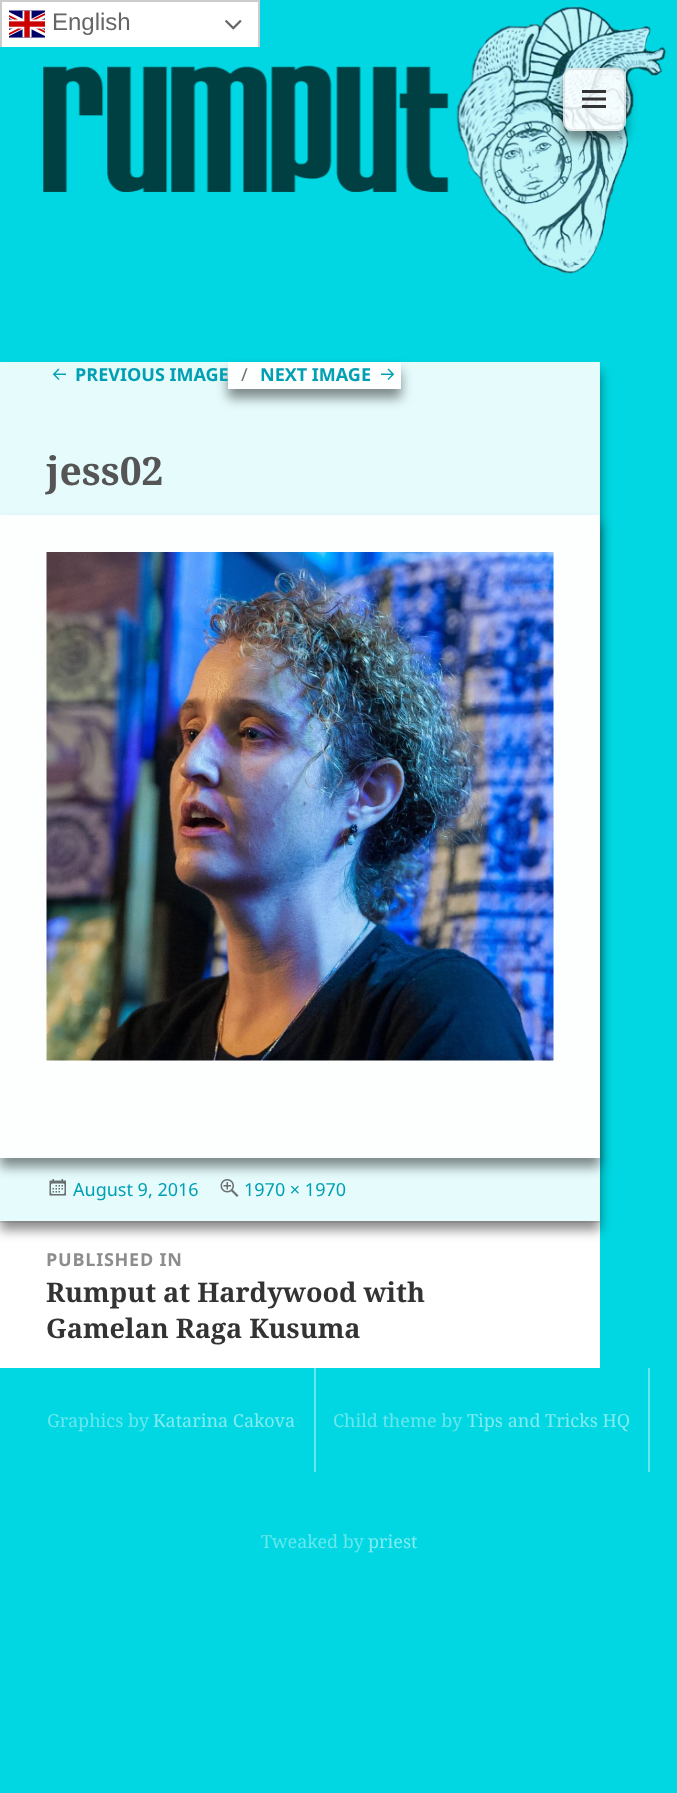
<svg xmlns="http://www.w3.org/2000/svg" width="677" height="1793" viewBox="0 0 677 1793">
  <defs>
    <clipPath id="clip1"><path d="M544 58H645V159H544ZM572 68H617C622 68 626 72 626 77V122C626 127 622 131 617 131H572C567 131 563 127 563 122V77C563 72 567 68 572 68Z" clip-rule="evenodd"/></clipPath>
    <clipPath id="clip2"><path d="M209 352H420V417H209ZM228 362H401V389H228Z" clip-rule="evenodd"/></clipPath>
  </defs>
  <rect width="100%" height="100%" fill="#00d7e2"/>
  <image x="43" y="6" width="623" height="268" href="img/1.png"/>
  <path d="M2 2h256v45H2z" fill="#fff"/>
  <path d="M0 0h260v2H0z" fill="#ccc"/>
  <path d="M258 0h2v47H258z" fill="#ccc"/>
  <path d="M0 0h2v47H0z" fill="#ccc"/>
  <image x="9" y="10" width="36" height="28" href="img/2.png"/>
  <image x="225" y="20" width="17" height="10" href="img/3.png"/>
  <g clip-path="url(#clip1)">
    <rect x="563" y="77" width="63" height="63" rx="9" fill="#00000073" filter="blur(6px)"/>
  </g>
  <rect x="563" y="68" width="63" height="63" rx="9" fill="#ffffffd9"/>
  <rect x="564" y="69" width="61" height="61" rx="8" fill="none" stroke="#3333331a" stroke-width="2"/>
  <image x="582" y="90" width="24" height="18" href="img/4.png"/>
  <path d="M0 1223h600v145H0z" fill="#fff"/>
  <path d="M0 1221h600v2H0z" fill="#ebebeb"/>
  <path d="M0 371h600v859H0z" fill="#00000073" filter="blur(6px)"/>
  <path d="M0 362h600v859H0z" fill="#e6fbfc"/>
  <image x="52" y="368" width="14" height="12" href="img/5.png"/>
  <g clip-path="url(#clip2)">
    <path d="M228 371h173v27H228z" fill="#00000073" filter="blur(6px)"/>
  </g>
  <path d="M228 362h173v27H228z" fill="#ffffffe6"/>
  <image x="381" y="368" width="14" height="12" href="img/6.png"/>
  <path d="M0 524h600v643H0z" fill="#00000073" filter="blur(6px)"/>
  <path d="M0 515h600v643H0z" fill="#fdffff"/>
  <image x="46" y="552" width="508" height="509" href="img/7.png"/>
  <image x="49" y="1179" width="17" height="17" href="img/8.png"/>
  <image x="220" y="1179" width="19" height="18" href="img/9.png"/>
  <path d="M314 1368h2v104H314z" fill="#66e7ee"/>
  <path d="M648 1368h2v104H648z" fill="#66e7ee"/>
  <text x="52" y="30" font-family="Liberation Sans" font-size="24" fill="#666">English</text>
  <text x="75" y="381" font-family="Noto Sans" font-size="18" font-weight="bold" fill="#00a0b4">PREVIOUS IMAGE</text>
  <text x="241" y="381" font-family="Noto Sans" font-size="18" fill="#6f7070">∕</text>
  <text x="260" y="381" font-family="Noto Sans" font-size="18" font-weight="bold" fill="#00a0b4">NEXT IMAGE</text>
  <text x="46" y="485" font-family="Noto Serif" font-size="39" font-weight="bold" fill="#555">jess02</text>
  <g font-family="Noto Sans" font-size="18" fill="#00a0b4">
    <text x="73" y="1196">August 9, 2016</text>
    <text x="244" y="1196">1970 × 1970</text>
  </g>
  <text x="46" y="1266" font-family="Noto Sans" font-size="18" font-weight="bold" letter-spacing="0.75" fill="#8d8d8d">PUBLISHED IN</text>
  <g font-family="Noto Serif" font-size="27" font-weight="bold" fill="#333">
    <text x="46" y="1302">Rumput at Hardywood with</text>
    <text x="46" y="1338">Gamelan Raga Kusuma</text>
  </g>
  <text x="47" y="1427" font-family="Noto Serif" font-size="18" fill="#66e7ee">Graphics by</text>
  <text x="153" y="1427" font-family="Noto Serif" font-size="18" fill="#80ebf1">Katarina Cakova</text>
  <text x="333" y="1427" font-family="Noto Serif" font-size="18" fill="#66e7ee">Child theme by</text>
  <text x="467" y="1427" font-family="Noto Serif" font-size="18" fill="#80ebf1">Tips and Tricks HQ</text>
  <text x="261" y="1548" font-family="Noto Serif" font-size="18" fill="#66e7ee">Tweaked by</text>
  <text x="368" y="1548" font-family="Noto Serif" font-size="18" fill="#80ebf1">priest</text>
</svg>
